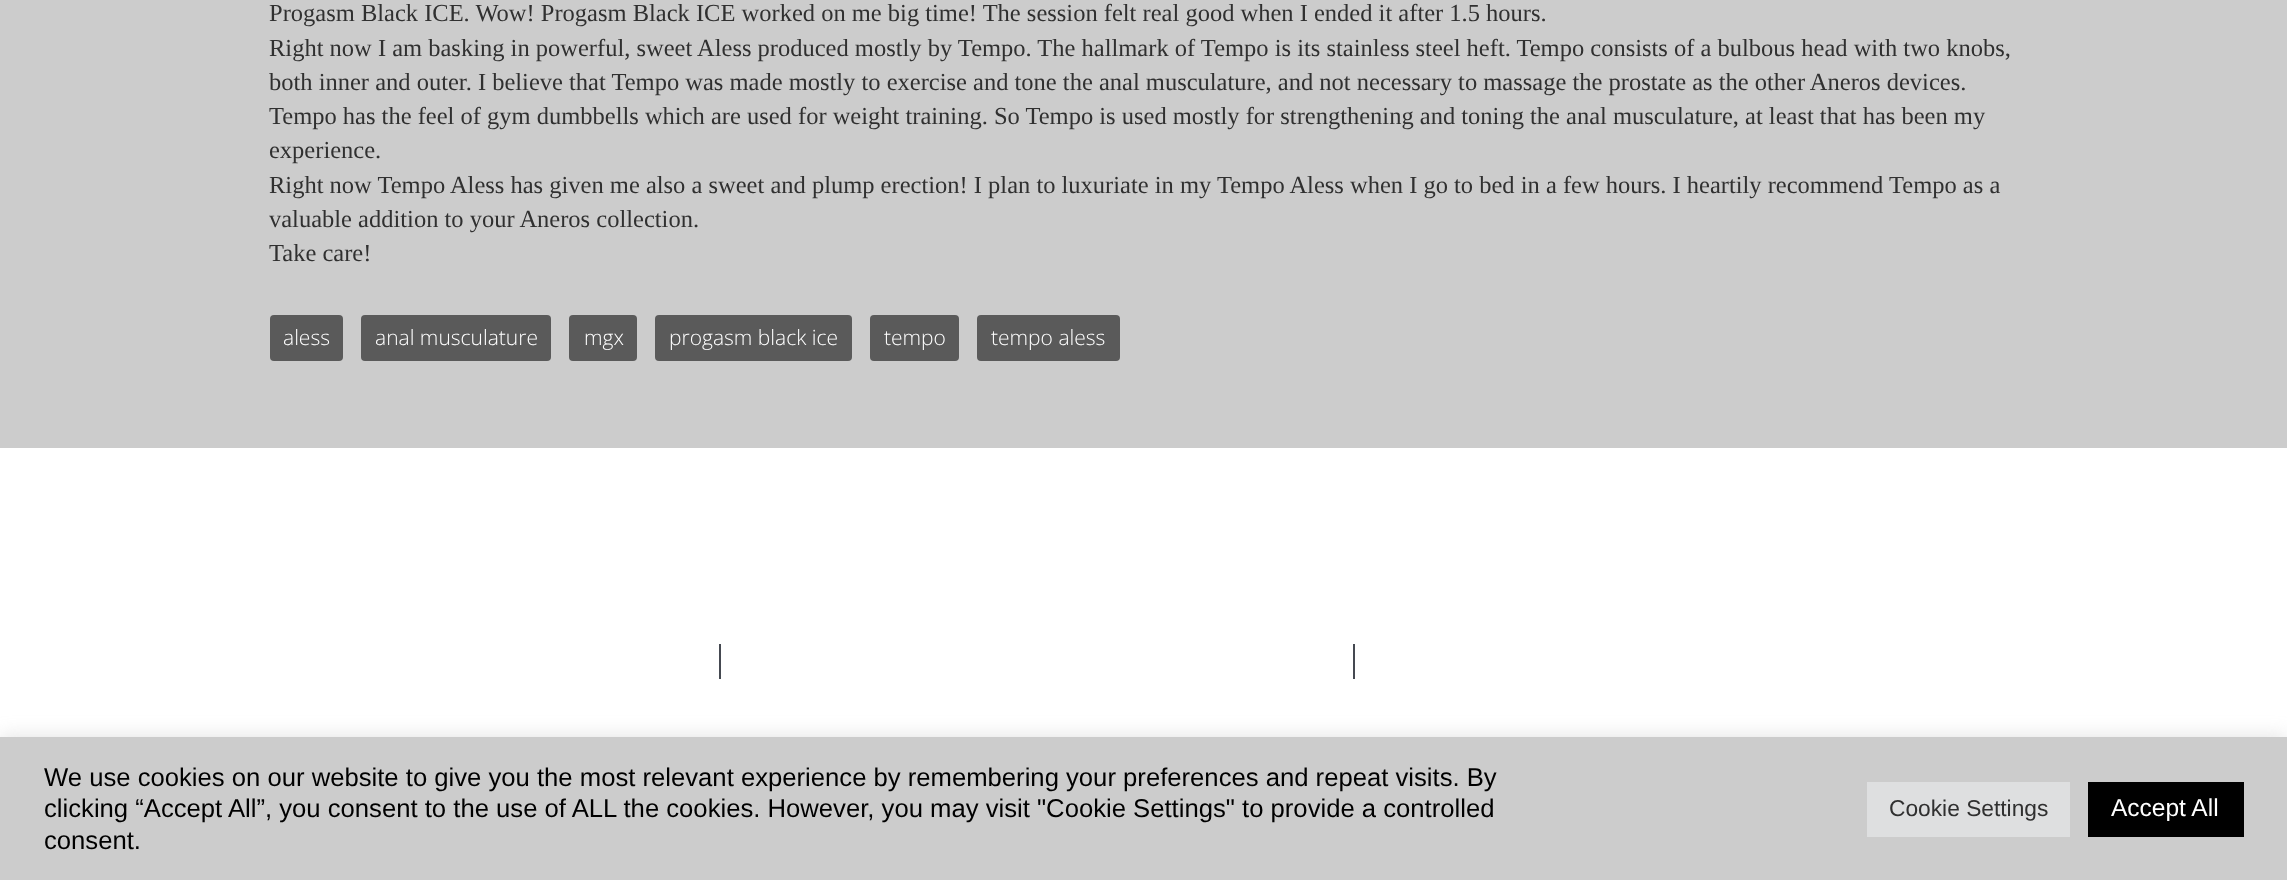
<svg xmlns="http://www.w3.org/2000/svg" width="2287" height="880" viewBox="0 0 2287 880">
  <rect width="100%" height="100%" fill="#ccc"/>
  <rect x="270" y="315" width="73" height="46" rx="4" fill="#5a5a5a"/>
  <rect x="361" y="315" width="190" height="46" rx="4" fill="#5a5a5a"/>
  <rect x="569" y="315" width="68" height="46" rx="4" fill="#5a5a5a"/>
  <rect x="655" y="315" width="197" height="46" rx="4" fill="#5a5a5a"/>
  <rect x="870" y="315" width="89" height="46" rx="4" fill="#5a5a5a"/>
  <rect x="977" y="315" width="143" height="46" rx="4" fill="#5a5a5a"/>
  <path d="M0 448h2287v289H0z" fill="#fff"/>
  <path d="M719 644h2v35H719z" fill="#454951"/>
  <path d="M1353 644h2v35H1353z" fill="#454951"/>
  <path d="M0 735h2287v144H0z" fill="#acabab4d" filter="blur(9px)"/>
  <path d="M0 737h2287v143H0z" fill="#ccc"/>
  <path d="M1867 782h203v55H1867z" fill="#dedfe0"/>
  <path d="M2088 782h156v55H2088z" fill="#000"/>
  <g font-family="Liberation Serif" font-size="24.5" fill="#303030">
    <text x="269" y="21">Progasm Black ICE. Wow! Progasm Black ICE worked on me big time! The session felt real good when I ended it after 1.5 hours.</text>
    <text x="269" y="56">Right now I am basking in powerful, sweet Aless produced mostly by Tempo. The hallmark of Tempo is its stainless steel heft. Tempo consists of a bulbous head with two knobs,</text>
    <text x="269" y="90">both inner and outer. I believe that Tempo was made mostly to exercise and tone the anal musculature, and not necessary to massage the prostate as the other Aneros devices.</text>
    <text x="269" y="124">Tempo has the feel of gym dumbbells which are used for weight training. So Tempo is used mostly for strengthening and toning the anal musculature, at least that has been my</text>
    <text x="269" y="158">experience.</text>
    <text x="269" y="193">Right now Tempo Aless has given me also a sweet and plump erection! I plan to luxuriate in my Tempo Aless when I go to bed in a few hours. I heartily recommend Tempo as a</text>
    <text x="269" y="227">valuable addition to your Aneros collection.</text>
    <text x="269" y="261">Take care!</text>
  </g>
  <g font-family="Open Sans" font-size="21" font-weight="300" fill="#fff">
    <text x="283" y="345">aless</text>
    <text x="375" y="345">anal musculature</text>
    <text x="584" y="345">mgx</text>
    <text x="669" y="345">progasm black ice</text>
    <text x="884" y="345">tempo</text>
    <text x="991" y="345">tempo aless</text>
  </g>
  <g font-family="Liberation Sans" font-size="25.67" fill="#000">
    <text x="44" y="786">We use cookies on our website to give you the most relevant experience by remembering your preferences and repeat visits. By</text>
    <text x="44" y="817">clicking “Accept All”, you consent to the use of ALL the cookies. However, you may visit "Cookie Settings" to provide a controlled</text>
    <text x="44" y="849">consent.</text>
  </g>
  <text x="1889" y="816" font-family="Liberation Sans" font-size="22.75" fill="#303030">Cookie Settings</text>
  <text x="2111" y="816" font-family="Liberation Sans" font-size="24.5" fill="#fff">Accept All</text>
</svg>
